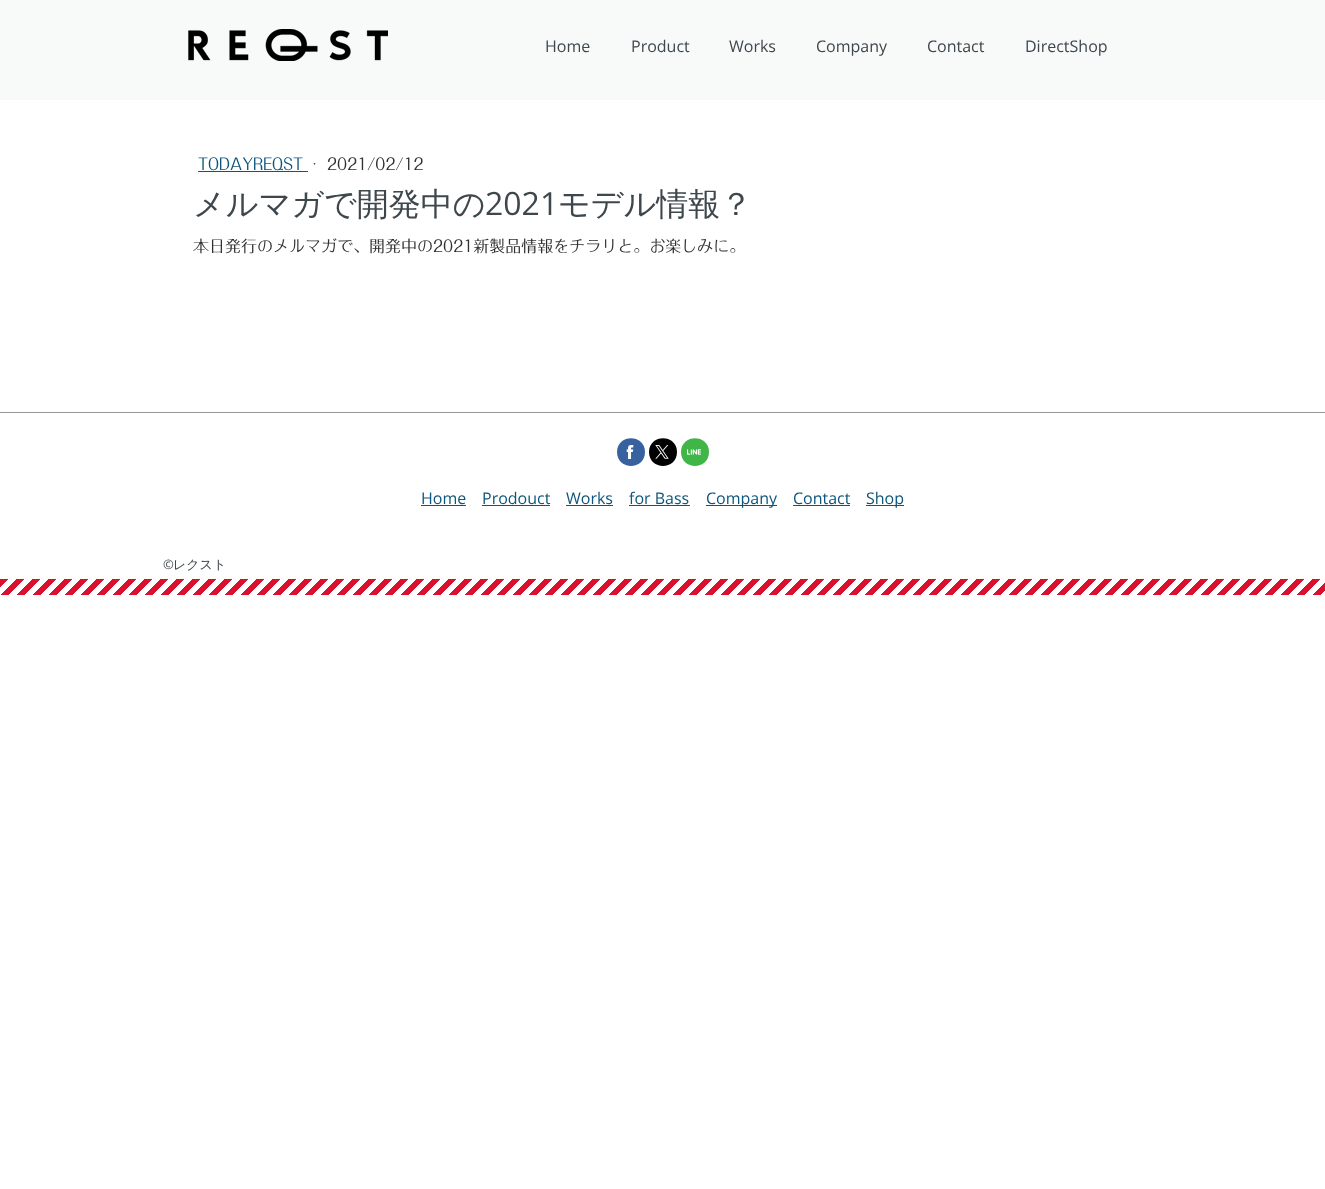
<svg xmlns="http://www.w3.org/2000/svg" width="1325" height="1189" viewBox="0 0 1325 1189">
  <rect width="100%" height="100%" fill="#fff"/>
  <path d="M0 0h1325v100H0z" fill="#f8f9f9"/>
  <image x="188" y="29" width="200" height="32" href="img/1.png"/>
  <path d="M198 171h110v1H198z" fill="#0d557d"/>
  <path d="M0 412h1325v1H0z" fill="#999"/>
  <path d="M617 452C617 470.5 645 470.5 645 452C645 433.5 617 433.5 617 452Z" fill="#38619f"/>
  <image x="626" y="445" width="8" height="14" href="img/2.png"/>
  <path d="M649 452C649 470.5 677 470.5 677 452C677 433.5 649 433.5 649 452Z" fill="#000"/>
  <image x="655" y="445" width="14" height="14" href="img/3.png"/>
  <path d="M681 452C681 470.5 709 470.5 709 452C709 433.5 681 433.5 681 452Z" fill="#40b649"/>
  <image x="687" y="449" width="14" height="6" href="img/4.png"/>
  <path d="M421 505h45v1H421z" fill="#0d557d"/>
  <path d="M482 505h68v1H482z" fill="#0d557d"/>
  <path d="M566 505h47v1H566z" fill="#0d557d"/>
  <path d="M629 505h61v1H629z" fill="#0d557d"/>
  <path d="M706 505h71v1H706z" fill="#0d557d"/>
  <path d="M793 505h57v1H793z" fill="#0d557d"/>
  <path d="M866 505h38v1H866z" fill="#0d557d"/>
  <image x="0" y="579" width="1325" height="16" href="img/5.png"/>
  <g font-family="Open Sans" font-size="16" fill="#3e474c">
    <text x="545" y="52">Home</text>
    <text x="631" y="52">Product</text>
    <text x="729" y="52">Works</text>
    <text x="816" y="52">Company</text>
    <text x="927" y="52">Contact</text>
    <text x="1025" y="52">DirectShop</text>
  </g>
  <text x="198" y="170" font-family="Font" font-size="16" fill="#0d557d">TODAYREQST</text>
  <g font-family="Font" font-size="16" fill="#303030">
    <text x="313" y="170">·</text>
    <text x="327" y="170">2021/02/12</text>
  </g>
  <text x="193" y="215" font-family="WenQuanYi Zen Hei" font-size="32" font-weight="500" fill="#3e474c">メルマガで開発中の</text>
  <text x="485" y="215" font-family="Open Sans" font-size="32" fill="#3e474c">2021</text>
  <text x="558" y="215" font-family="WenQuanYi Zen Hei" font-size="32" font-weight="500" fill="#3e474c">モデル情報？</text>
  <text x="193" y="252" font-family="Font" font-size="16" fill="#303030">本日発行のメルマガで、開発中の2021新製品情報をチラリと。お楽しみに。</text>
  <g font-family="Open Sans" font-size="16" fill="#0d557d">
    <text x="421" y="504">Home</text>
    <text x="482" y="504">Prodouct</text>
    <text x="566" y="504">Works</text>
    <text x="629" y="504">for Bass</text>
    <text x="706" y="504">Company</text>
    <text x="793" y="504">Contact</text>
    <text x="866" y="504">Shop</text>
  </g>
  <text x="163" y="569" font-family="Open Sans" font-size="13" fill="#3e474c">©</text>
  <text x="173" y="569" font-family="WenQuanYi Zen Hei" font-size="13" font-weight="500" fill="#3e474c">レクスト</text>
</svg>
